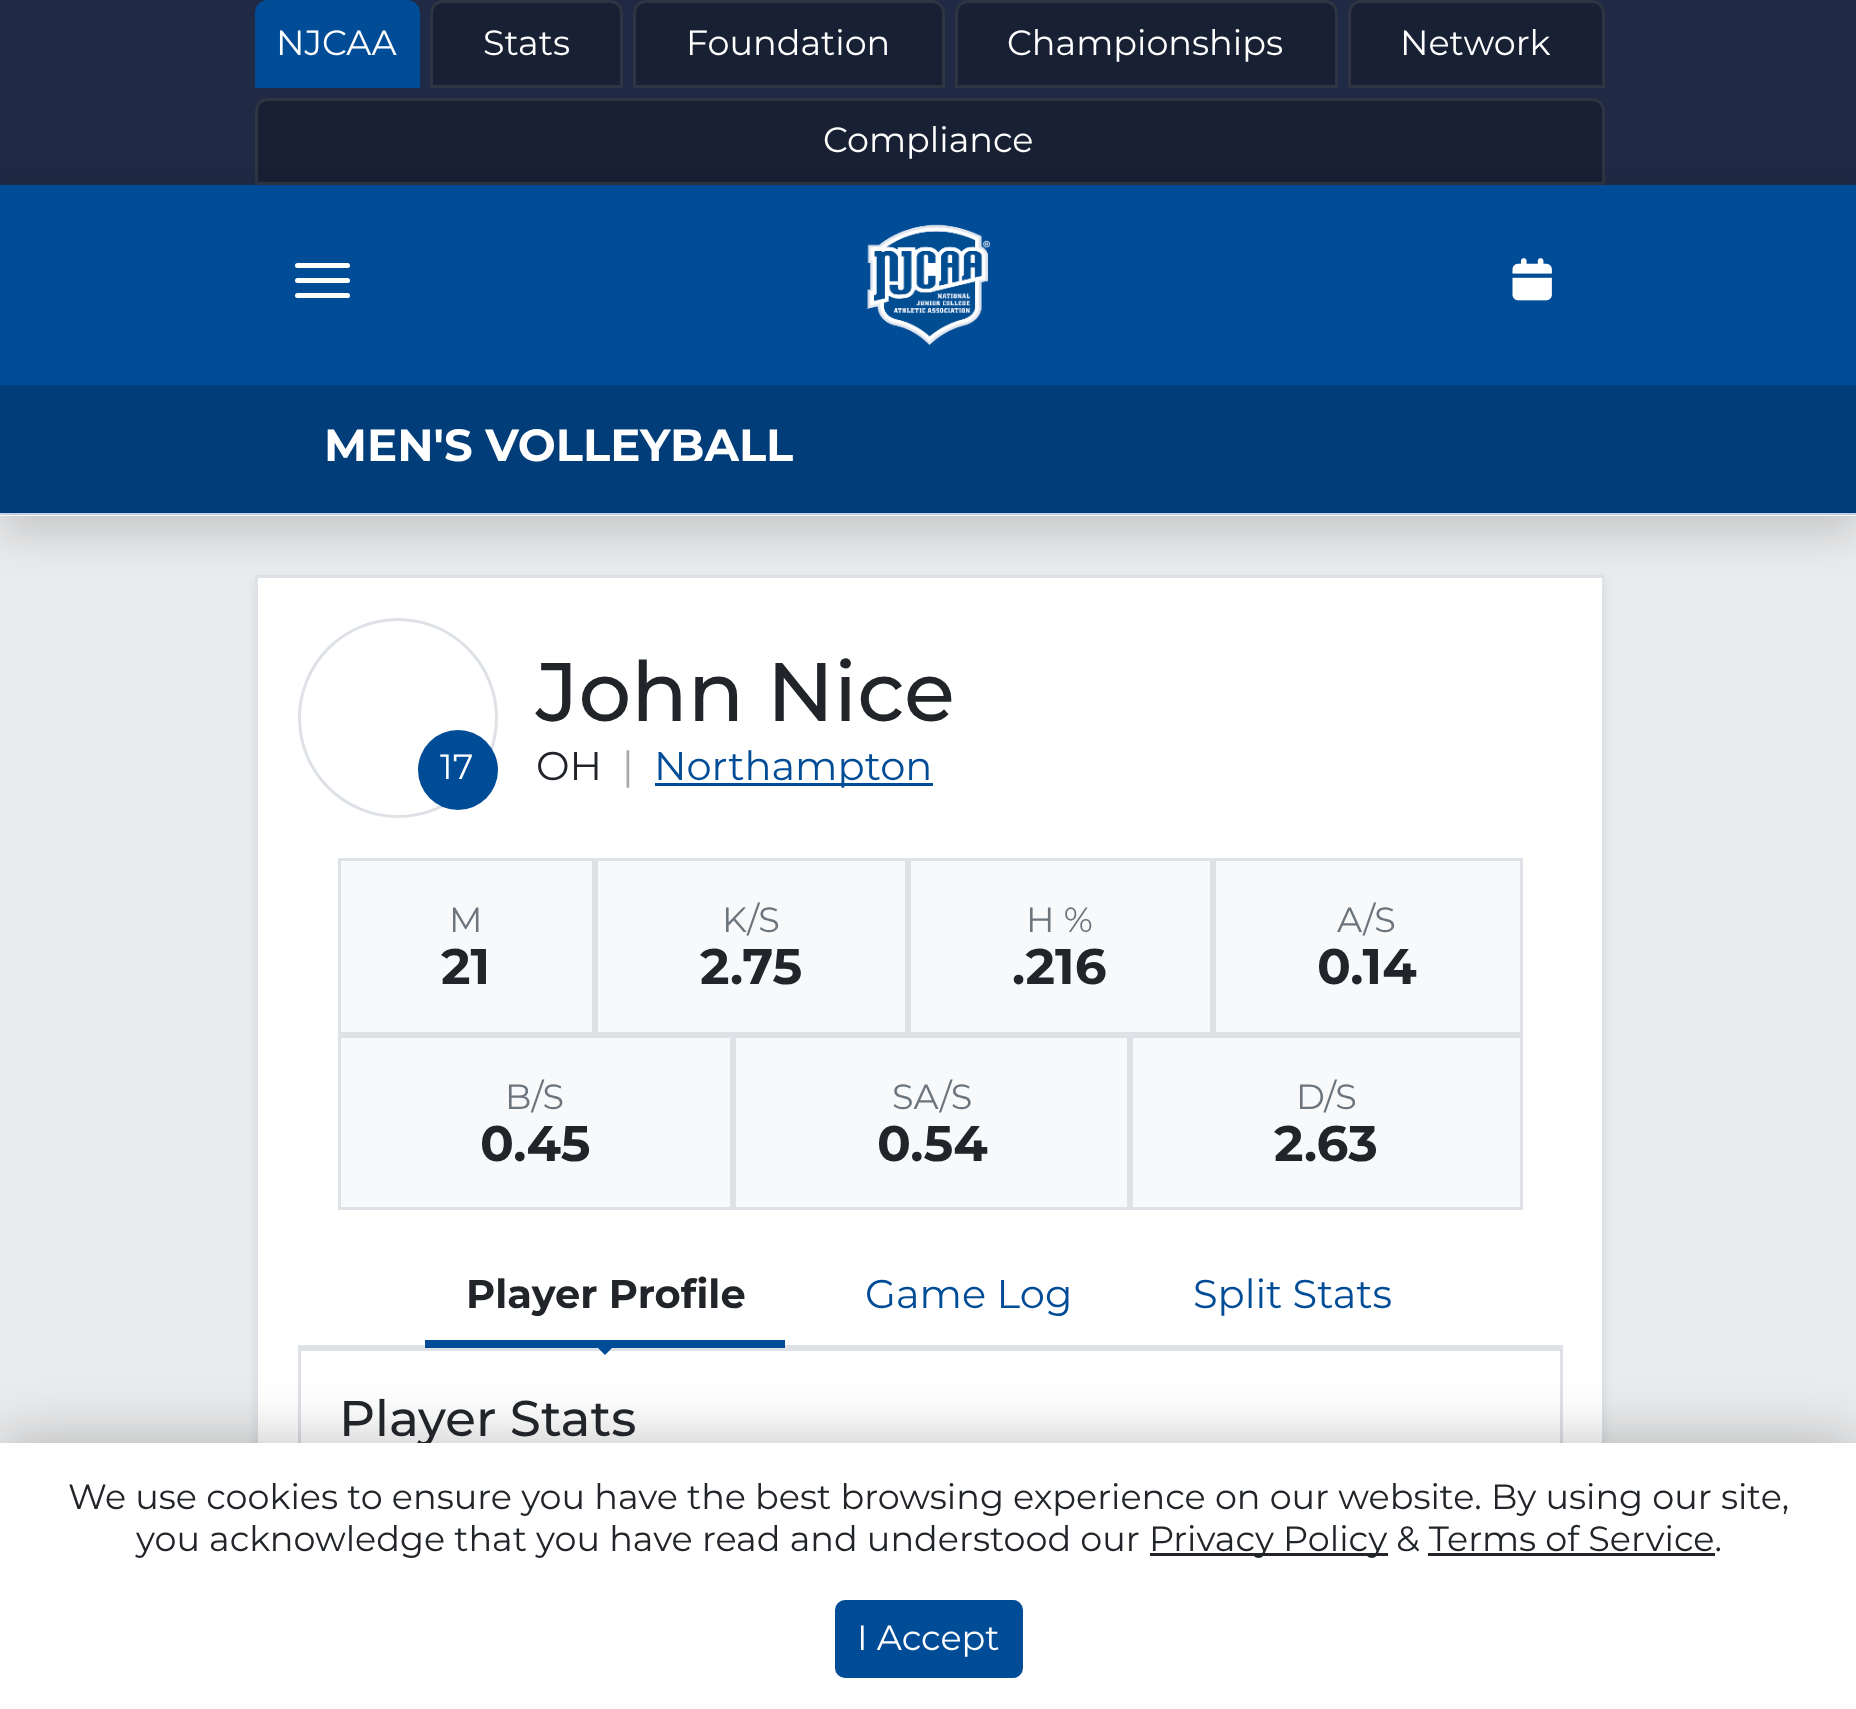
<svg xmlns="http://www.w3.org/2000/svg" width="1856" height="1709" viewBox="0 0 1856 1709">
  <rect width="100%" height="100%" fill="#202a44"/>
  <path d="M268 1.5H407C413.5 1.5 418.5 6.5 418.5 13V86.5H256.5V13C256.5 6.5 261.5 1.5 268 1.5Z" fill="#004c97" stroke="#004c97" stroke-width="3"/>
  <path d="M443 0H610C617 0 623 6 623 13V88H430V13C430 6 436 0 443 0Z" fill="#182033"/>
  <path d="M443 1.5H610C616.5 1.5 621.5 6.5 621.5 13V86.5H431.5V13C431.5 6.5 436.5 1.5 443 1.5Z" fill="none" stroke="#70707040" stroke-width="3"/>
  <path d="M646 0H932C939 0 945 6 945 13V88H633V13C633 6 639 0 646 0Z" fill="#182033"/>
  <path d="M646 1.5H932C938.5 1.5 943.5 6.5 943.5 13V86.5H634.5V13C634.5 6.5 639.5 1.5 646 1.5Z" fill="none" stroke="#70707040" stroke-width="3"/>
  <path d="M968 0H1325C1332 0 1338 6 1338 13V88H955V13C955 6 961 0 968 0Z" fill="#182033"/>
  <path d="M968 1.5H1325C1331.5 1.5 1336.5 6.5 1336.5 13V86.5H956.5V13C956.5 6.5 961.5 1.5 968 1.5Z" fill="none" stroke="#70707040" stroke-width="3"/>
  <path d="M1361 0H1592C1599 0 1605 6 1605 13V88H1348V13C1348 6 1354 0 1361 0Z" fill="#182033"/>
  <path d="M1361 1.5H1592C1598.5 1.5 1603.5 6.5 1603.5 13V86.5H1349.5V13C1349.5 6.5 1354.5 1.5 1361 1.5Z" fill="none" stroke="#70707040" stroke-width="3"/>
  <path d="M268 98H1592C1599 98 1605 104 1605 111V185H255V111C255 104 261 98 268 98Z" fill="#182033"/>
  <path d="M268 99.5H1592C1598.5 99.5 1603.5 104.5 1603.5 111V183.5H256.5V111C256.5 104.5 261.5 99.5 268 99.5Z" fill="none" stroke="#70707040" stroke-width="3"/>
  <path d="M0 515h1856v928H0z" fill="#eaebec"/>
  <path d="M255 580h1350v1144H255z" fill="#00000012" filter="blur(5px)"/>
  <path d="M258 578h1344v865H258z" fill="#fff"/>
  <path d="M256.5 576.5h1347v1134H256.5z" fill="none" stroke="#dee2e6" stroke-width="3"/>
  <path d="M0 205h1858v330H0z" fill="#00000026" filter="blur(20px)"/>
  <path d="M0 185h1856v330H0z" fill="#004c97"/>
  <path d="M0 513h1856v3H0z" fill="#ffffffbf"/>
  <rect x="295" y="263" width="55" height="5" rx="2.5" fill="#fff"/>
  <rect x="295" y="278" width="55" height="5" rx="2.5" fill="#fff"/>
  <rect x="295" y="293" width="55" height="5" rx="2.5" fill="#fff"/>
  <image x="867" y="224" width="123" height="121" href="img/1.png"/>
  <image x="1512" y="258" width="40" height="43" href="img/2.png"/>
  <path d="M0 385h1856v128H0z" fill="#003d79"/>
  <circle cx="398" cy="718" r="98.5" fill="none" stroke="#dee2e6" stroke-width="3"/>
  <circle cx="458" cy="770" r="40" fill="#004c97"/>
  <path d="M655 783h278v3H655z" fill="#004c97"/>
  <path d="M341 861h1179v346H341z" fill="#f8f9fa"/>
  <path d="M339.5 859.5h254v174H339.5z" fill="none" stroke="#dee2e6" stroke-width="3"/>
  <path d="M596.5 859.5h310v174H596.5z" fill="none" stroke="#dee2e6" stroke-width="3"/>
  <path d="M909.5 859.5h302v174H909.5z" fill="none" stroke="#dee2e6" stroke-width="3"/>
  <path d="M1214.5 859.5h307v174H1214.5z" fill="none" stroke="#dee2e6" stroke-width="3"/>
  <path d="M339.5 1036.5h392v172H339.5z" fill="none" stroke="#dee2e6" stroke-width="3"/>
  <path d="M734.5 1036.5h394v172H734.5z" fill="none" stroke="#dee2e6" stroke-width="3"/>
  <path d="M1131.5 1036.5h390v172H1131.5z" fill="none" stroke="#dee2e6" stroke-width="3"/>
  <path d="M298 1345h1265v3H298z" fill="#dee2e6"/>
  <path d="M425 1340h360v8H425z" fill="#004c97"/>
  <path d="M299.5 1349.5h1262v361H299.5z" fill="none" stroke="#dee2e6" stroke-width="3"/>
  <path d="M590 1340H620L605 1355Z" fill="#004c97"/>
  <path d="M0 1443h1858v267H0z" fill="#00000040" filter="blur(30px)"/>
  <g font-family="Montserrat" font-size="35" fill="#fff">
    <text x="276" y="55">NJCAA</text>
    <text x="483" y="55">Stats</text>
    <text x="686" y="55">Foundation</text>
    <text x="1007" y="55">Championships</text>
    <text x="1400" y="55">Network</text>
    <text x="823" y="152">Compliance</text>
  </g>
  <text x="324" y="461" font-family="Montserrat" font-size="45" font-weight="bold" fill="#fff">MEN'S VOLLEYBALL</text>
  <text x="440" y="779" font-family="Montserrat" font-size="35" fill="#fff">17</text>
  <text x="536" y="721" font-family="Montserrat" font-size="83" font-weight="500" fill="#212529">John Nice</text>
  <text x="536" y="780" font-family="Montserrat" font-size="40" fill="#212529">OH</text>
  <text x="622" y="780" font-family="Montserrat" font-size="40" fill="#a6a8a9">|</text>
  <text x="654" y="780" font-family="Montserrat" font-size="40" fill="#004c97">Northampton</text>
  <text x="449" y="932" font-family="Montserrat" font-size="35" fill="#6c757d">M</text>
  <text x="441" y="984" font-family="Montserrat" font-size="50" font-weight="bold" fill="#212529">21</text>
  <text x="722" y="932" font-family="Montserrat" font-size="35" fill="#6c757d">K/S</text>
  <text x="700" y="984" font-family="Montserrat" font-size="50" font-weight="bold" fill="#212529">2.75</text>
  <text x="1026" y="932" font-family="Montserrat" font-size="35" fill="#6c757d">H %</text>
  <text x="1012" y="984" font-family="Montserrat" font-size="50" font-weight="bold" fill="#212529">.216</text>
  <text x="1337" y="932" font-family="Montserrat" font-size="35" fill="#6c757d">A/S</text>
  <text x="1317" y="984" font-family="Montserrat" font-size="50" font-weight="bold" fill="#212529">0.14</text>
  <text x="505" y="1109" font-family="Montserrat" font-size="35" fill="#6c757d">B/S</text>
  <text x="480" y="1161" font-family="Montserrat" font-size="50" font-weight="bold" fill="#212529">0.45</text>
  <text x="892" y="1109" font-family="Montserrat" font-size="35" fill="#6c757d">SA/S</text>
  <text x="877" y="1161" font-family="Montserrat" font-size="50" font-weight="bold" fill="#212529">0.54</text>
  <text x="1296" y="1109" font-family="Montserrat" font-size="35" fill="#6c757d">D/S</text>
  <text x="1274" y="1161" font-family="Montserrat" font-size="50" font-weight="bold" fill="#212529">2.63</text>
  <text x="466" y="1308" font-family="Montserrat" font-size="40" font-weight="bold" fill="#212529">Player Profile</text>
  <g font-family="Montserrat" font-size="40" fill="#004c97">
    <text x="865" y="1308">Game Log</text>
    <text x="1193" y="1308">Split Stats</text>
  </g>
  <text x="339" y="1436" font-family="Montserrat" font-size="50" font-weight="500" fill="#212529">Player Stats</text>
  <path d="M0 1443h1856v266H0z" fill="#fff"/>
  <g font-family="Montserrat" font-size="35" fill="#212529">
    <text x="68" y="1509">We use cookies to ensure you have the best browsing experience on our website. By using our site,</text>
    <text x="136" y="1551">you acknowledge that you have read and understood our</text>
  </g>
  <path d="M1150 1553h238v3H1150z" fill="#212529"/>
  <text x="1149" y="1551" font-family="Montserrat" font-size="35" fill="#212529">Privacy Policy &amp; Terms of Service.</text>
  <path d="M1428 1553h287v3H1428z" fill="#212529"/>
  <rect x="836.5" y="1601.5" width="185" height="75" rx="8.5" fill="#004c97" stroke="#004c97" stroke-width="3"/>
  <text x="857" y="1650" font-family="Montserrat" font-size="35" fill="#fff">I Accept</text>
</svg>
